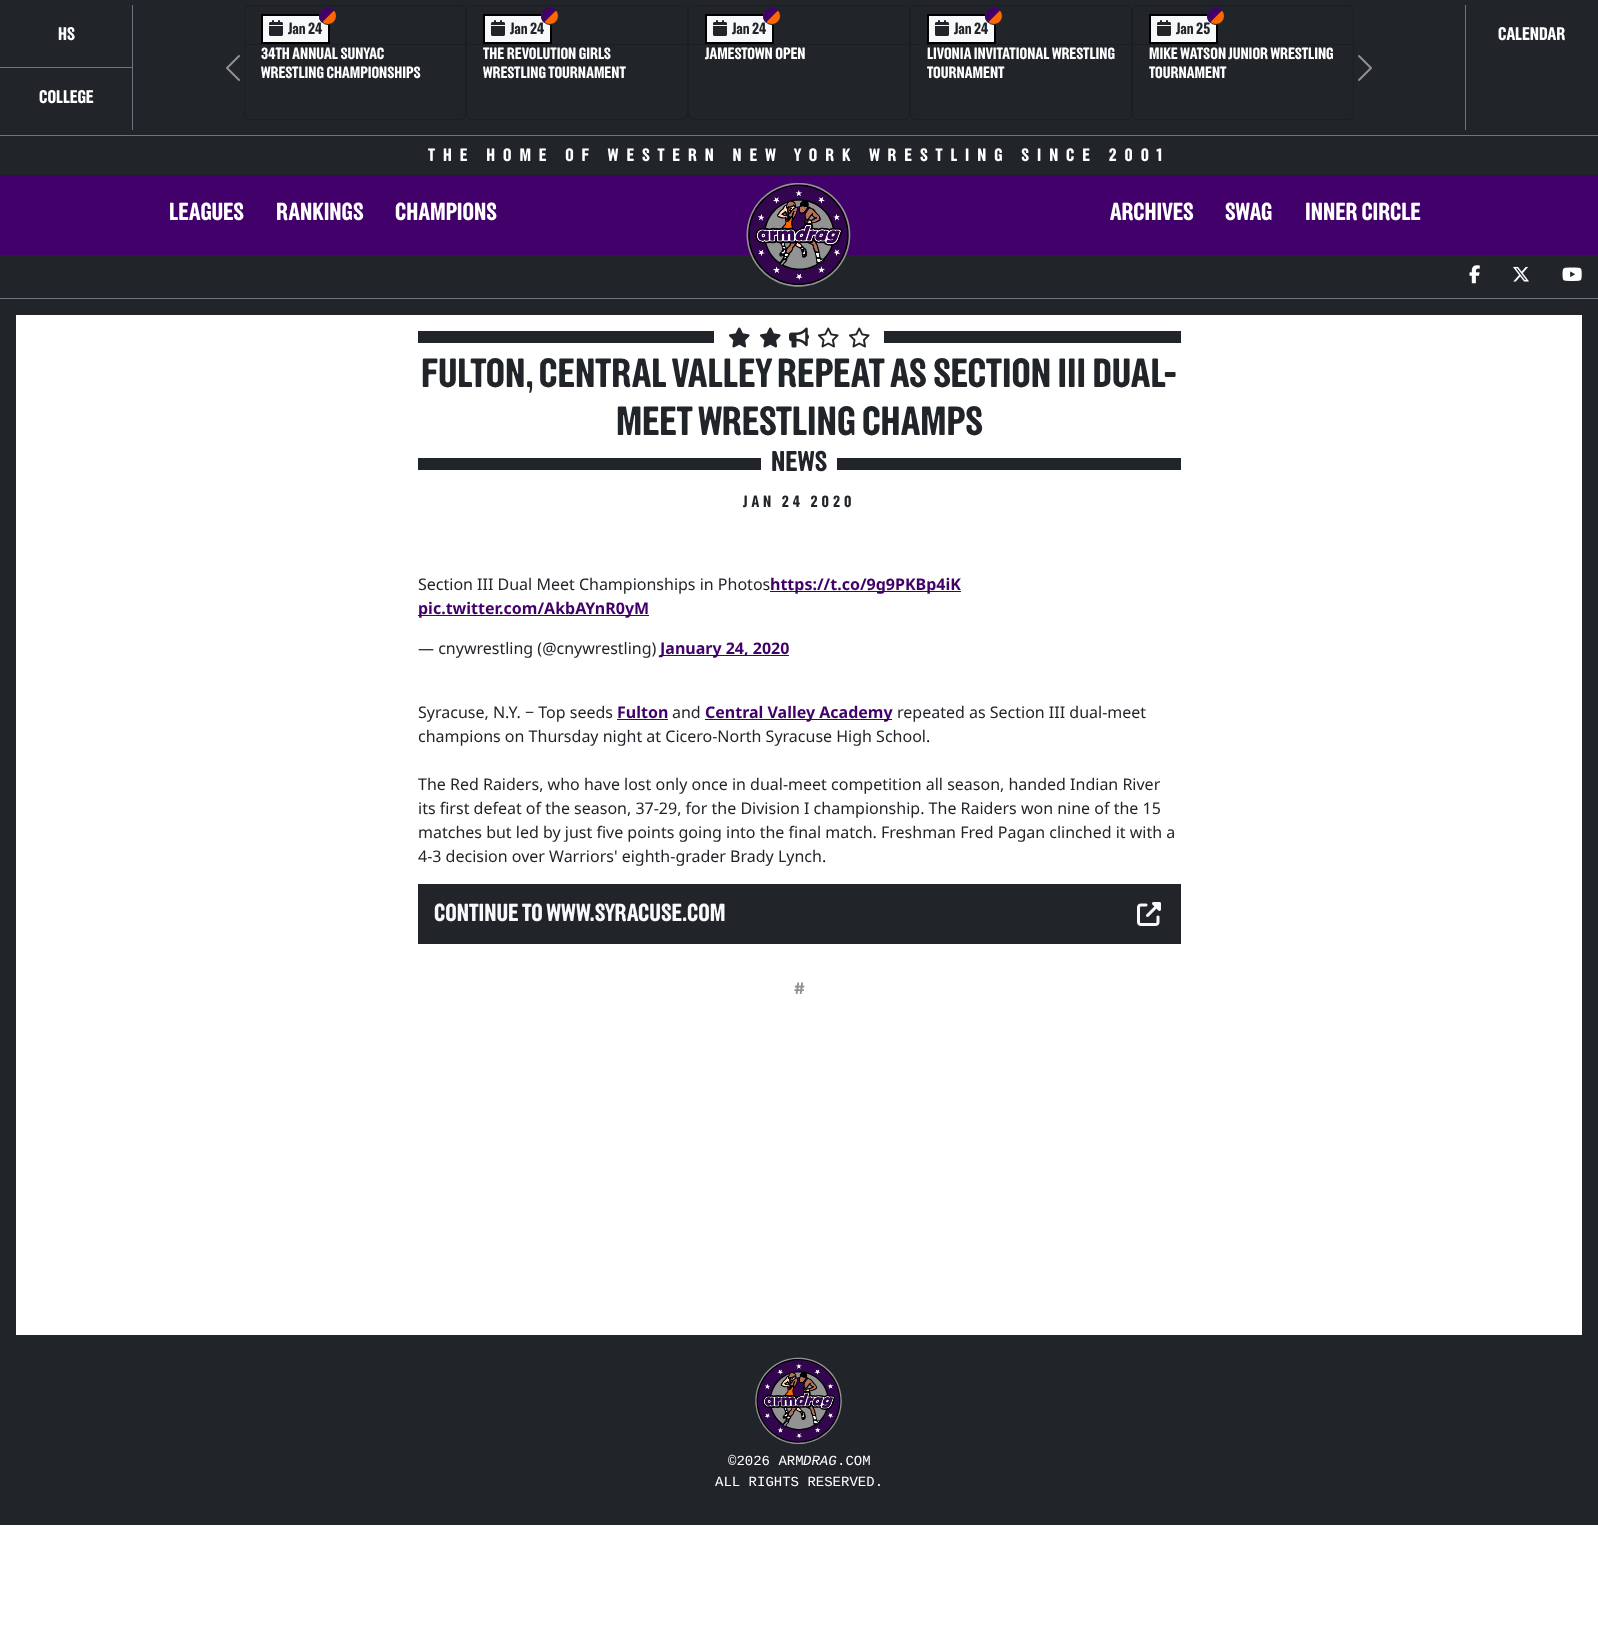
<svg xmlns="http://www.w3.org/2000/svg" width="1598" height="1631" viewBox="0 0 1598 1631">
  <rect width="100%" height="100%" fill="#fff"/>
  <path d="M0 0h1598v135H0z" fill="#212529"/>
  <path d="M132 5h1v125H132z" fill="#6c757d"/>
  <path d="M0 67h132v1H0z" fill="#6c757d"/>
  <image x="226" y="55" width="14" height="26" href="img/1.png"/>
  <rect x="244.5" y="5.5" width="221" height="114" rx="5.5" fill="none" stroke="#1b1e22"/>
  <path d="M245 44h220v1H245z" fill="#1b1e22"/>
  <path d="M262 15h67v28H262z" fill="#f8f9fa" stroke="#000" stroke-width="2"/>
  <image x="269" y="20" width="14" height="16" href="img/2.png"/>
  <rect x="466.5" y="5.5" width="221" height="114" rx="5.5" fill="none" stroke="#1b1e22"/>
  <path d="M467 44h220v1H467z" fill="#1b1e22"/>
  <path d="M484 15h67v28H484z" fill="#f8f9fa" stroke="#000" stroke-width="2"/>
  <image x="491" y="20" width="14" height="16" href="img/2.png"/>
  <rect x="688.5" y="5.5" width="221" height="114" rx="5.5" fill="none" stroke="#1b1e22"/>
  <path d="M689 44h220v1H689z" fill="#1b1e22"/>
  <path d="M706 15h67v28H706z" fill="#f8f9fa" stroke="#000" stroke-width="2"/>
  <image x="713" y="20" width="14" height="16" href="img/2.png"/>
  <rect x="910.5" y="5.5" width="221" height="114" rx="5.5" fill="none" stroke="#1b1e22"/>
  <path d="M911 44h220v1H911z" fill="#1b1e22"/>
  <path d="M928 15h67v28H928z" fill="#f8f9fa" stroke="#000" stroke-width="2"/>
  <image x="935" y="20" width="14" height="16" href="img/2.png"/>
  <rect x="1132.5" y="5.5" width="221" height="114" rx="5.5" fill="none" stroke="#1b1e22"/>
  <path d="M1133 44h220v1H1133z" fill="#1b1e22"/>
  <path d="M1150 15h67v28H1150z" fill="#f8f9fa" stroke="#000" stroke-width="2"/>
  <image x="1157" y="20" width="14" height="16" href="img/2.png"/>
  <image x="1358" y="55" width="14" height="26" href="img/3.png"/>
  <path d="M1465 5h1v125H1465z" fill="#6c757d"/>
  <path d="M0 136h1598v39H0z" fill="#212529"/>
  <path d="M0 135h1598v1H0z" fill="#6c757d"/>
  <path d="M0 175h1598v80H0z" fill="#42006a"/>
  <path d="M0 255h1598v43H0z" fill="#212529"/>
  <image x="746" y="183" width="105" height="104" href="img/4.png"/>
  <image x="1469" y="265" width="11" height="19" href="img/5.png"/>
  <image x="1513" y="266" width="16" height="16" href="img/6.png"/>
  <image x="1562" y="267" width="20" height="14" href="img/7.png"/>
  <path d="M0 298h1598v1H0z" fill="#6c757d"/>
  <path d="M8 307h1582v1210H8z" fill="none" stroke="#212529" stroke-width="16"/>
  <path d="M418 331h296v12H418z" fill="#212529"/>
  <image x="729" y="327" width="21" height="21" href="img/8.png"/>
  <image x="760" y="327" width="21" height="21" href="img/8.png"/>
  <image x="789" y="327" width="20" height="21" href="img/9.png"/>
  <image x="818" y="327" width="21" height="21" href="img/10.png"/>
  <image x="849" y="327" width="21" height="21" href="img/10.png"/>
  <path d="M884 331h297v12H884z" fill="#212529"/>
  <path d="M418 458h343v12H418z" fill="#212529"/>
  <path d="M837 458h344v12H837z" fill="#212529"/>
  <path d="M770 591h191v1H770z" fill="#42006a"/>
  <path d="M418 615h231v1H418z" fill="#42006a"/>
  <path d="M660 655h129v1H660z" fill="#42006a"/>
  <path d="M617 719h51v1H617z" fill="#42006a"/>
  <path d="M705 719h187v1H705z" fill="#42006a"/>
  <path d="M418 884h763v60H418z" fill="#212529"/>
  <image x="1137" y="902" width="24" height="24" href="img/11.png"/>
  <path d="M16 1335h1566v174H16z" fill="#212529"/>
  <image x="755" y="1357" width="87" height="88" href="img/12.png"/>
  <g font-family="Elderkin" font-size="18" font-weight="bold" fill="#fff">
    <text x="58" y="40">HS</text>
    <text x="39" y="103">COLLEGE</text>
  </g>
  <text x="288" y="34" font-family="Elderkin" font-size="16" font-weight="bold" fill="#212529">Jan 24</text>
  <circle cx="328" cy="16" r="8.5" fill="#ff6700" stroke="#212529"/>
  <path d="M328 7C324 7 320.5 9.5 319.5 13V19C320 20.5 321 21.5 322 22.5L334.5 10C333 8 330.5 7 328 7Z" fill="#42006a"/>
  <path d="M328 7C324 7 320.5 9.5 319.5 13V19C320 20.5 321 21.5 322 22.5L322.5 22C314.5 14.5 326.5 2.5 334 10.5L334.5 10C333 8 330.5 7 328 7Z" fill="#212529"/>
  <g font-family="Elderkin" font-size="16" font-weight="bold" fill="#fff">
    <text x="261" y="59">34TH ANNUAL SUNYAC</text>
    <text x="261" y="78">WRESTLING CHAMPIONSHIPS</text>
  </g>
  <text x="510" y="34" font-family="Elderkin" font-size="16" font-weight="bold" fill="#212529">Jan 24</text>
  <circle cx="550" cy="16" r="8.5" fill="#ff6700" stroke="#212529"/>
  <path d="M550 7C546 7 542.5 9.5 541.5 13.5V18.5C542 20 542.5 21.5 544 22.5L556.5 10C555 8 552.5 7 550 7Z" fill="#42006a"/>
  <path d="M550 7C546 7 542.5 9.5 541.5 13.5V18.5C542 20 542.5 21.5 544 22.5L544.5 22C536.5 14.5 548.5 2.5 556 10.5L556.5 10C555 8 552.5 7 550 7Z" fill="#212529"/>
  <g font-family="Elderkin" font-size="16" font-weight="bold" fill="#fff">
    <text x="483" y="59">THE REVOLUTION GIRLS</text>
    <text x="483" y="78">WRESTLING TOURNAMENT</text>
  </g>
  <text x="732" y="34" font-family="Elderkin" font-size="16" font-weight="bold" fill="#212529">Jan 24</text>
  <circle cx="772" cy="16" r="8.5" fill="#ff6700" stroke="#212529"/>
  <path d="M772 7C768 7 764.5 9.5 763.5 13.5V18.5C764 20 764.5 21.5 766 22.5L778.5 10C777 8 774.5 7 772 7Z" fill="#42006a"/>
  <path d="M772 7C768 7 764.5 9.5 763.5 13.5V18.5C764 20 764.5 21.5 766 22.5L766.5 22C758.5 14.5 770.5 2.5 778 10.5L778.5 10C777 8 774.5 7 772 7Z" fill="#212529"/>
  <text x="705" y="59" font-family="Elderkin" font-size="16" font-weight="bold" fill="#fff">JAMESTOWN OPEN</text>
  <text x="954" y="34" font-family="Elderkin" font-size="16" font-weight="bold" fill="#212529">Jan 24</text>
  <circle cx="994" cy="16" r="8.5" fill="#ff6700" stroke="#212529"/>
  <path d="M994 7C986 7 982 17 988 22.5L1000.5 10C999 8 996.5 7 994 7Z" fill="#42006a"/>
  <path d="M994 7C986 7 982 17 988 22.5L988.5 22C980.5 14.5 992.5 2.5 1000 10.5L1000.5 10C999 8 996.5 7 994 7Z" fill="#212529"/>
  <g font-family="Elderkin" font-size="16" font-weight="bold" fill="#fff">
    <text x="927" y="59">LIVONIA INVITATIONAL WRESTLING</text>
    <text x="927" y="78">TOURNAMENT</text>
  </g>
  <text x="1176" y="34" font-family="Elderkin" font-size="16" font-weight="bold" fill="#212529">Jan 25</text>
  <circle cx="1216" cy="16" r="8.5" fill="#ff6700" stroke="#212529"/>
  <path d="M1216 7C1212 7 1208.5 10 1207.5 13.5V18.5C1208 20 1208.5 21.5 1210 22.5L1222.5 10C1221 8 1218.5 7 1216 7Z" fill="#42006a"/>
  <path d="M1216 7C1212 7 1208.5 10 1207.5 13.5V18.5C1208 20 1208.5 21.5 1210 22.5L1210.5 22C1202.5 14.5 1214.5 2.5 1222 10.5L1222.5 10C1221 8 1218.5 7 1216 7Z" fill="#212529"/>
  <g font-family="Elderkin" font-size="16" font-weight="bold" fill="#fff">
    <text x="1149" y="59">MIKE WATSON JUNIOR WRESTLING</text>
    <text x="1149" y="78">TOURNAMENT</text>
  </g>
  <text x="1498" y="40" font-family="Elderkin" font-size="18" font-weight="bold" fill="#fff">CALENDAR</text>
  <text x="428" y="161" font-family="Elderkin" font-size="17.6" font-weight="bold" letter-spacing="8" fill="#fff">THE HOME OF WESTERN NEW YORK WRESTLING SINCE 2001</text>
  <g font-family="Elderkin" font-size="24" font-weight="bold" fill="#fff">
    <text x="169" y="220">LEAGUES</text>
    <text x="276" y="220">RANKINGS</text>
    <text x="395" y="220">CHAMPIONS</text>
    <text x="1110" y="220">ARCHIVES</text>
    <text x="1225" y="220">SWAG</text>
    <text x="1305" y="220">INNER CIRCLE</text>
  </g>
  <g font-family="Elderkin" font-size="40" font-weight="bold" fill="#212529">
    <text x="421" y="387">FULTON, CENTRAL VALLEY REPEAT AS SECTION III DUAL-</text>
    <text x="616" y="435">MEET WRESTLING CHAMPS</text>
  </g>
  <text x="771" y="471" font-family="Elderkin" font-size="28" font-weight="bold" fill="#212529">NEWS</text>
  <text x="743" y="507" font-family="Elderkin" font-size="16" font-weight="bold" letter-spacing="4" fill="#212529">JAN 24 2020</text>
  <text x="418" y="590" font-family="Noto Sans" font-size="16" fill="#212529">Section III Dual Meet Championships in Photos</text>
  <g font-family="Noto Sans" font-size="16" font-weight="bold" fill="#42006a">
    <text x="770" y="590">https://t.co/9g9PKBp4iK</text>
    <text x="418" y="614">pic.twitter.com/AkbAYnR0yM</text>
  </g>
  <text x="418" y="654" font-family="Noto Sans" font-size="16" fill="#212529">— cnywrestling (@cnywrestling)</text>
  <text x="660" y="654" font-family="Noto Sans" font-size="16" font-weight="bold" fill="#42006a">January 24, 2020</text>
  <text x="418" y="718" font-family="Noto Sans" font-size="16" fill="#212529">Syracuse, N.Y. − Top seeds</text>
  <text x="617" y="718" font-family="Noto Sans" font-size="16" font-weight="bold" fill="#42006a">Fulton</text>
  <text x="672" y="718" font-family="Noto Sans" font-size="16" fill="#212529">and</text>
  <text x="705" y="718" font-family="Noto Sans" font-size="16" font-weight="bold" fill="#42006a">Central Valley Academy</text>
  <g font-family="Noto Sans" font-size="16" fill="#212529">
    <text x="897" y="718">repeated as Section III dual-meet</text>
    <text x="418" y="742">champions on Thursday night at Cicero-North Syracuse High School.</text>
    <text x="418" y="790">The Red Raiders, who have lost only once in dual-meet competition all season, handed Indian River</text>
    <text x="418" y="814">its first defeat of the season, 37-29, for the Division I championship. The Raiders won nine of the 15</text>
    <text x="418" y="838">matches but led by just five points going into the final match. Freshman Fred Pagan clinched it with a</text>
    <text x="418" y="862">4-3 decision over Warriors' eighth-grader Brady Lynch.</text>
  </g>
  <text x="434" y="921" font-family="Elderkin" font-size="24" font-weight="bold" fill="#f8f9fa">CONTINUE TO WWW.SYRACUSE.COM</text>
  <text x="794" y="994" font-family="Elderkin" font-size="16" font-weight="bold" fill="#909294">#</text>
  <text x="728" y="1465" font-family="Liberation Mono" font-size="14" fill="#fff">©2026 ARM</text>
  <text x="803" y="1465" font-family="Liberation Mono" font-size="14" font-style="italic" fill="#fff">DRAG</text>
  <g font-family="Liberation Mono" font-size="14" fill="#fff">
    <text x="837" y="1465">.COM</text>
    <text x="715" y="1486">ALL RIGHTS RESERVED.</text>
  </g>
</svg>
